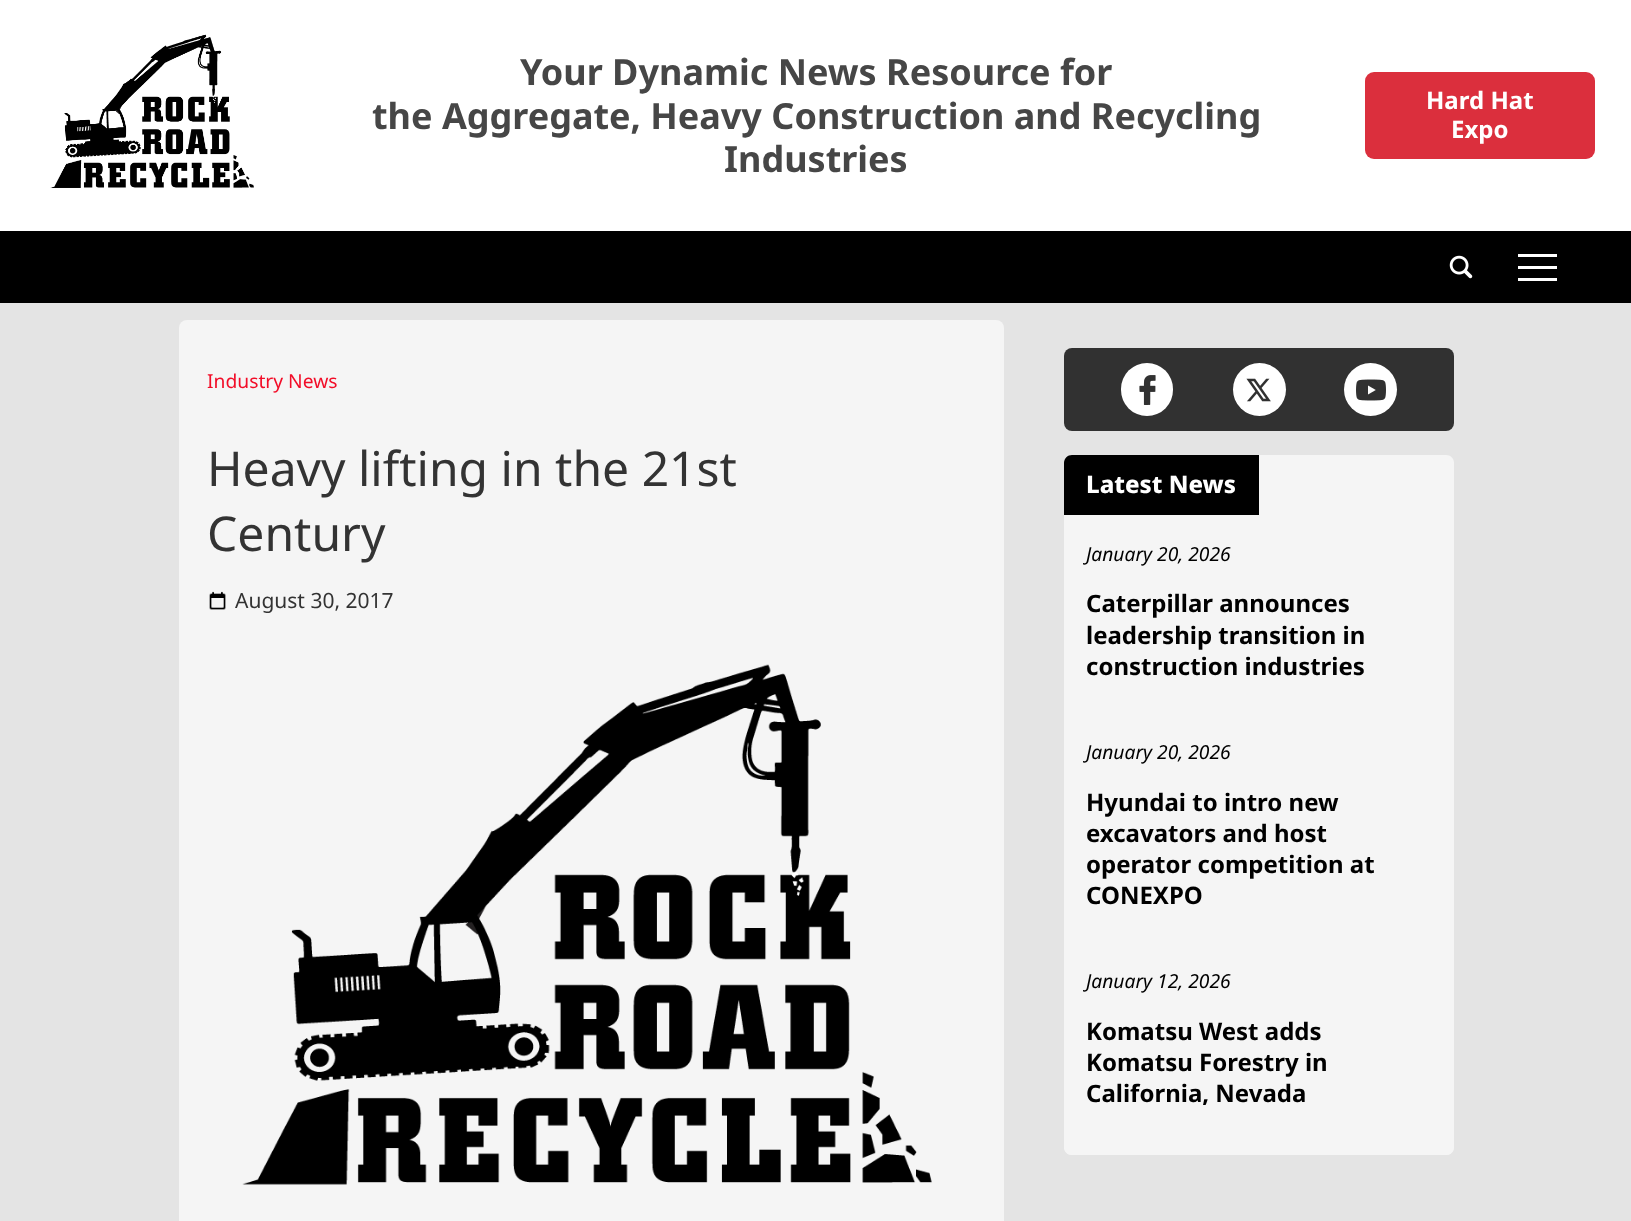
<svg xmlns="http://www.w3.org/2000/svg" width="1631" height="1221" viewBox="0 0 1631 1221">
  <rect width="100%" height="100%" fill="#e4e4e4"/>
  <path d="M0 0h1631v231H0z" fill="#fff"/>
  <image x="50" y="34" width="204" height="154" href="img/1.png"/>
  <rect x="1365" y="72" width="230" height="87" rx="9" fill="#db2f3d"/>
  <path d="M0 231h1631v72H0z" fill="#000"/>
  <image x="1449" y="255" width="24" height="24" href="img/2.png"/>
  <path d="M1518 266h39v3H1518z" fill="#fff"/>
  <path d="M1518 254h39v3H1518z" fill="#fff"/>
  <path d="M1518 278h39v3H1518z" fill="#fff"/>
  <rect x="179" y="320" width="825" height="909" rx="8" fill="#f5f5f5"/>
  <image x="209" y="591" width="17" height="19" href="img/3.png"/>
  <image x="242" y="664" width="690" height="521" href="img/4.png"/>
  <rect x="1064" y="348" width="390" height="83" rx="8" fill="#313131"/>
  <rect x="1121" y="363" width="52" height="53" rx="26" fill="#fff"/>
  <image x="1139" y="375" width="17" height="30" href="img/5.png"/>
  <circle cx="1259.5" cy="389.5" r="26.5" fill="#fff"/>
  <image x="1246" y="378" width="25" height="24" href="img/6.png"/>
  <circle cx="1370.5" cy="389.5" r="26.5" fill="#fff"/>
  <image x="1356" y="379" width="30" height="22" href="img/7.png"/>
  <path d="M1072 455H1446C1450.5 455 1454 458.5 1454 463V515H1064V463C1064 458.5 1067.5 455 1072 455Z" fill="#f5f5f5"/>
  <path d="M1072 455H1259V515H1064V463C1064 458.5 1067.5 455 1072 455Z" fill="#000"/>
  <path d="M1064 515H1454V1147C1454 1151.5 1450.5 1155 1446 1155H1072C1067.5 1155 1064 1151.5 1064 1147Z" fill="#f5f5f5"/>
  <path d="M1064 957H1454V1147C1454 1151.5 1450.5 1155 1446 1155H1072C1067.5 1155 1064 1151.5 1064 1147Z" fill="#f5f5f5"/>
  <g font-family="Noto Sans" font-size="36" font-weight="bold" fill="#464646">
    <text x="520" y="85">Your Dynamic News Resource for</text>
    <text x="372" y="129">the Aggregate, Heavy Construction and Recycling</text>
    <text x="724" y="172">Industries</text>
  </g>
  <g font-family="Noto Sans" font-size="24" font-weight="bold" fill="#fff">
    <text x="1426" y="109">Hard Hat</text>
    <text x="1451" y="138">Expo</text>
  </g>
  <text x="207" y="388" font-family="Noto Sans" font-size="19.25" fill="#f20d28">Industry News</text>
  <g font-family="Noto Sans" font-size="48" fill="#333">
    <text x="207" y="486">Heavy lifting in the 21st</text>
    <text x="207" y="551">Century</text>
  </g>
  <text x="235" y="608" font-family="Noto Sans" font-size="21" fill="#333">August 30, 2017</text>
  <text x="1086" y="493" font-family="Noto Sans" font-size="24" font-weight="800" fill="#fff">Latest News</text>
  <text x="1086" y="561" font-family="Noto Sans" font-size="19.25" font-style="italic" fill="#000">January 20, 2026</text>
  <g font-family="Noto Sans" font-size="24" font-weight="bold" fill="#000">
    <text x="1086" y="612">Caterpillar announces</text>
    <text x="1086" y="644">leadership transition in</text>
    <text x="1086" y="675">construction industries</text>
  </g>
  <text x="1086" y="759" font-family="Noto Sans" font-size="19.25" font-style="italic" fill="#000">January 20, 2026</text>
  <g font-family="Noto Sans" font-size="24" font-weight="bold" fill="#000">
    <text x="1086" y="811">Hyundai to intro new</text>
    <text x="1086" y="842">excavators and host</text>
    <text x="1086" y="873">operator competition at</text>
    <text x="1086" y="904">CONEXPO</text>
  </g>
  <text x="1086" y="988" font-family="Noto Sans" font-size="19.25" font-style="italic" fill="#000">January 12, 2026</text>
  <g font-family="Noto Sans" font-size="24" font-weight="bold" fill="#000">
    <text x="1086" y="1040">Komatsu West adds</text>
    <text x="1086" y="1071">Komatsu Forestry in</text>
    <text x="1086" y="1102">California, Nevada</text>
  </g>
</svg>
